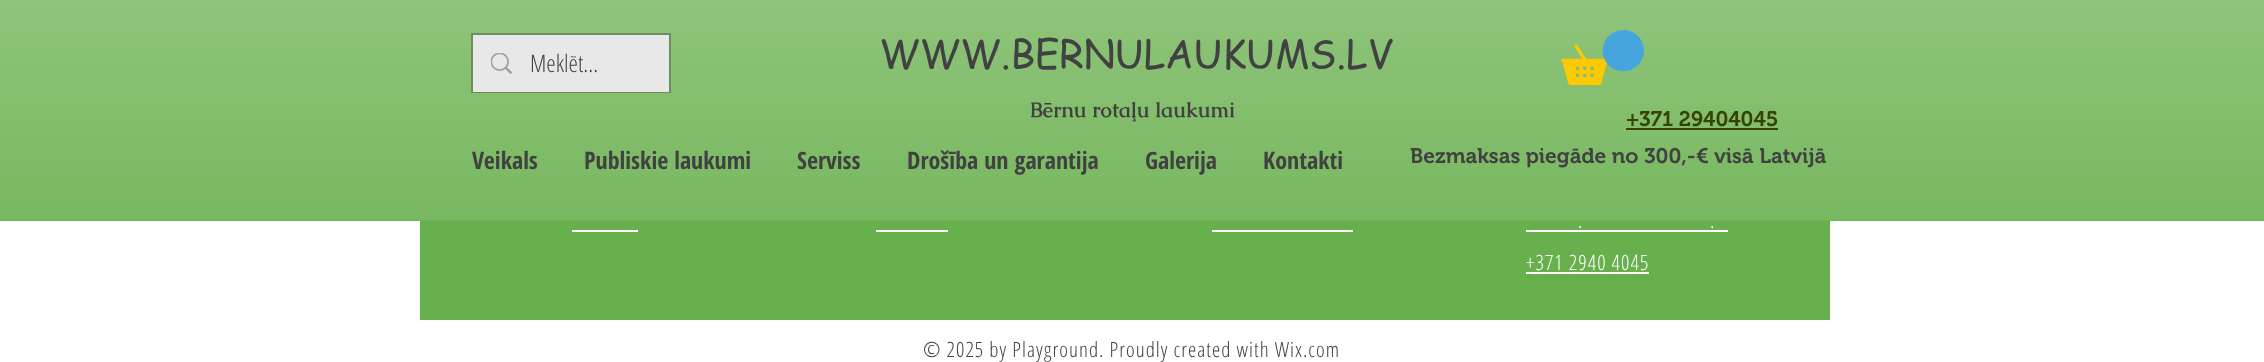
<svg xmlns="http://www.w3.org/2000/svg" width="2264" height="362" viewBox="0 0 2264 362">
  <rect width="100%" height="100%" fill="#fff"/>
  <path d="M0 0h2264v221H0z" fill="#68b04d"/>
  <image x="0" y="0" width="2264" height="221" href="img/1.png"/>
  <path d="M472 34h198v58H472z" fill="none" stroke="#41414163" stroke-width="2"/>
  <path d="M473 35h196v57H473z" fill="#e8e8e8"/>
  <image x="491" y="53" width="21" height="21" href="img/2.png"/>
  <image x="1561" y="30" width="83" height="56" href="img/3.png"/>
  <path d="M1626 128h152v2H1626z" fill="#364208"/>
  <path d="M420 221h1410v99H420z" fill="#68b04d"/>
  <path d="M572 230h66v2H572z" fill="#fff"/>
  <path d="M876 230h72v2H876z" fill="#fff"/>
  <path d="M1212 230h141v2H1212z" fill="#fff"/>
  <path d="M1526 230h202v2H1526z" fill="#fff"/>
  <path d="M1526 272h123v2H1526z" fill="#fff"/>
  <text x="530" y="72" font-family="Open Sans Condensed" font-size="24" font-weight="300" fill="#414141">Meklēt...</text>
  <text x="879" y="68" font-family="'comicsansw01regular'" font-size="39" fill="#414141">WWW.BERNULAUKUMS.LV</text>
  <text x="1030" y="117" font-family="Caudex" font-size="21" font-weight="bold" fill="#414141">Bērnu rotaļu laukumi</text>
  <text x="1626" y="126" font-family="'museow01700'" font-size="21" font-weight="600" fill="#364208">+371 29404045</text>
  <g font-family="Open Sans Condensed" font-size="24" font-weight="bold" fill="#414141">
    <text x="472" y="169">Veikals</text>
    <text x="584" y="169">Publiskie laukumi</text>
    <text x="797" y="169">Serviss</text>
    <text x="907" y="169">Drošība un garantija</text>
    <text x="1145" y="169">Galerija</text>
    <text x="1263" y="169">Kontakti</text>
  </g>
  <text x="1410" y="163" font-family="'museow01700'" font-size="21" font-weight="600" fill="#414141">Bezmaksas piegāde no 300,-€ visā Latvijā</text>
  <g font-family="Open Sans Condensed" font-size="21" font-weight="300" letter-spacing="1.05" fill="#fff">
    <text x="1578" y="228">.</text>
    <text x="1710" y="228">.</text>
    <text x="1526" y="270">+371 2940 4045</text>
  </g>
  <text x="923" y="357" font-family="Open Sans Condensed" font-size="21" font-weight="300" letter-spacing="1.05" fill="#414141">© 2025 by Playground. Proudly created with Wix.com</text>
</svg>
